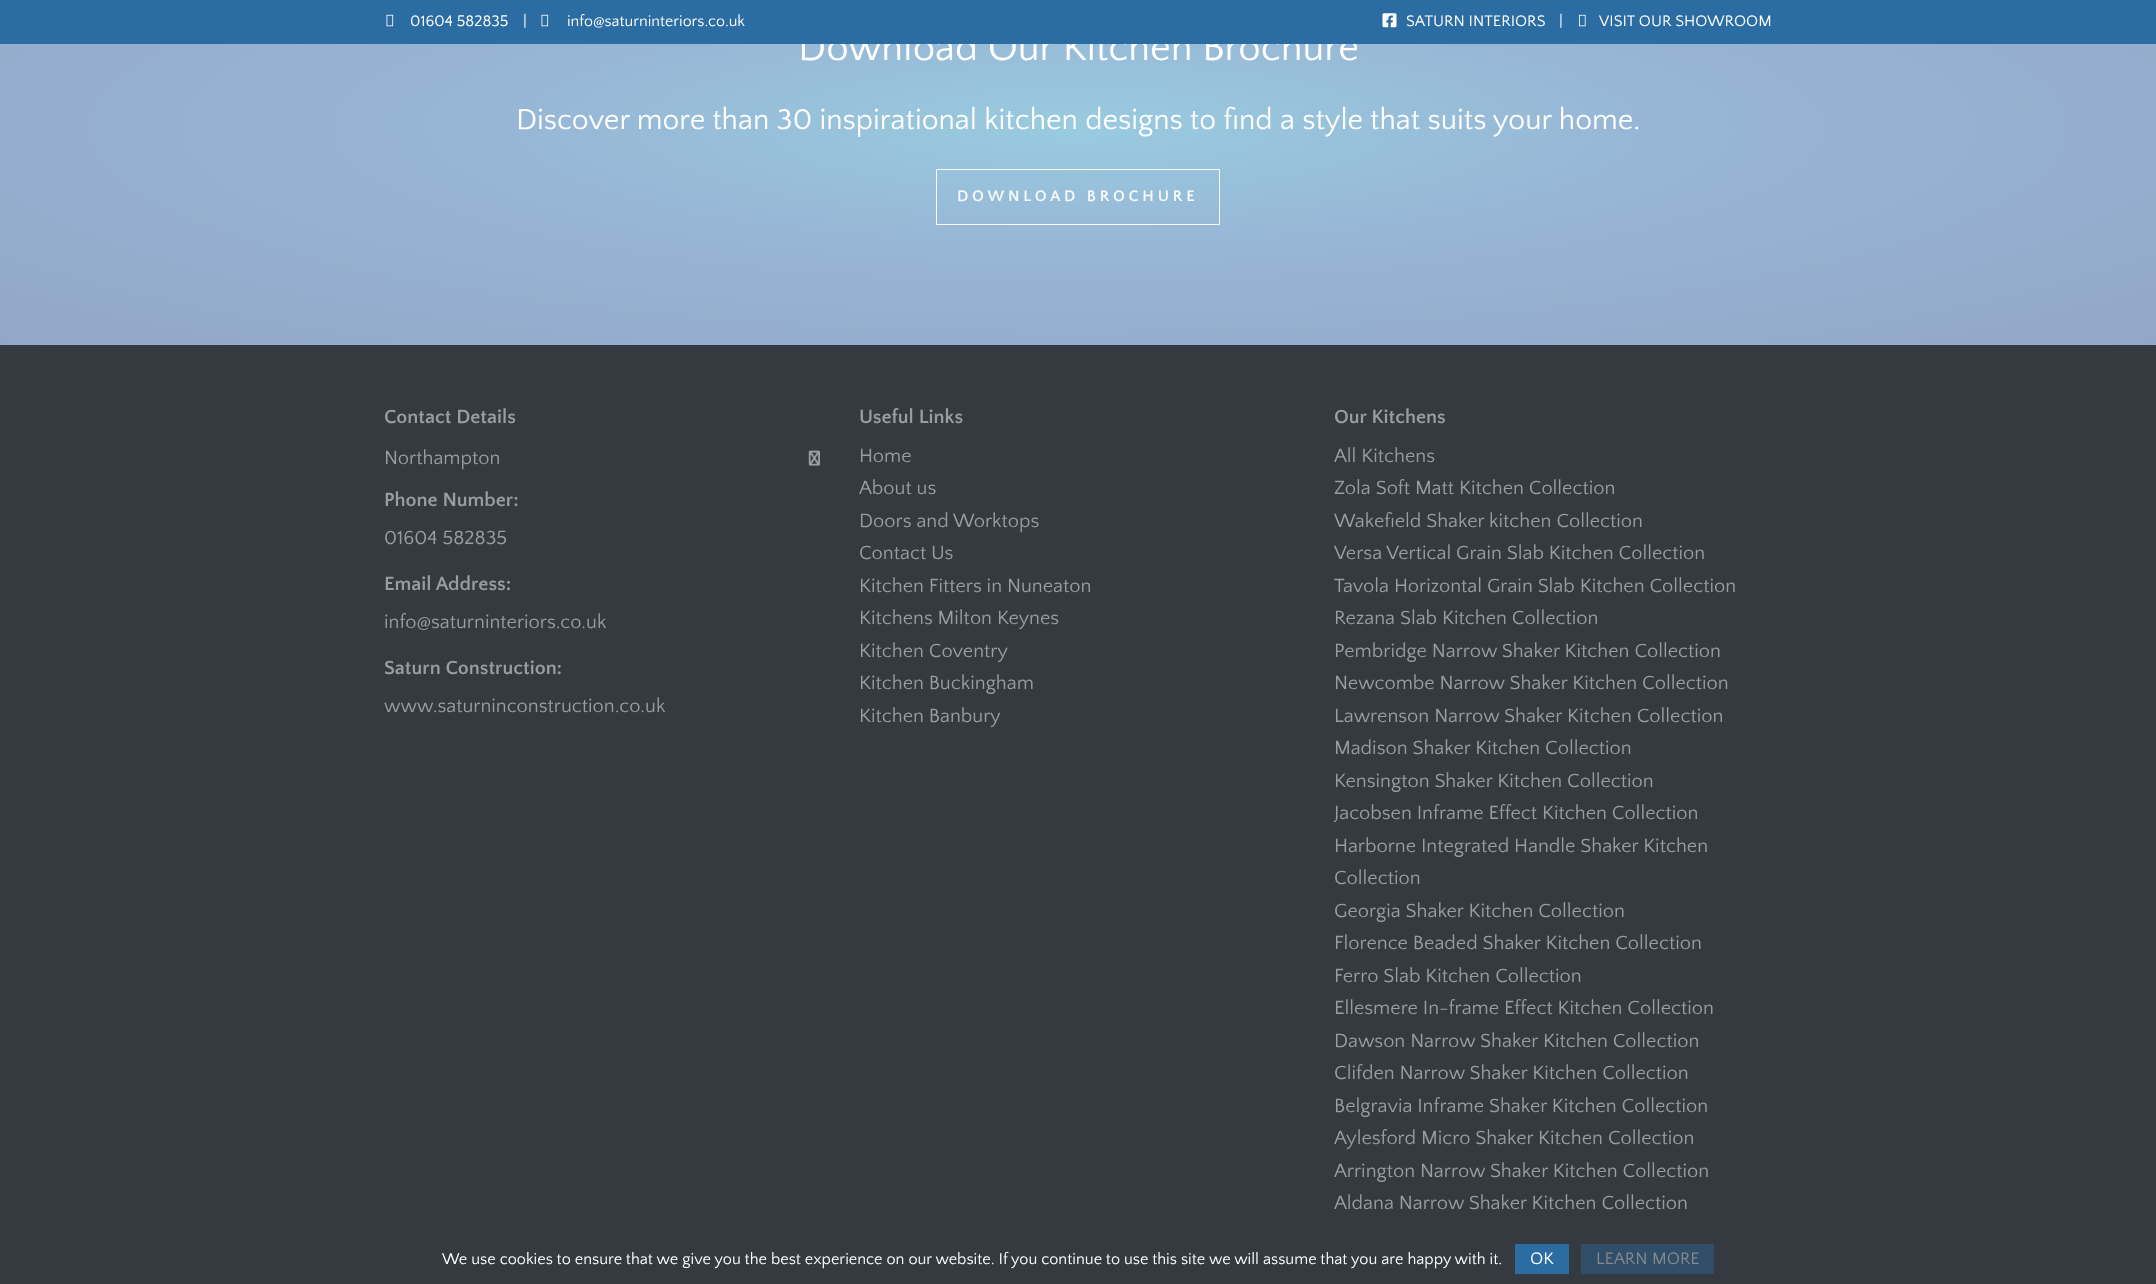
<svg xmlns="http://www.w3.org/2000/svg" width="2156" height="1284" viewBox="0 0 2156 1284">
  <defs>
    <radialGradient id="g1" gradientUnits="userSpaceOnUse" cx="0" cy="0" r="1" gradientTransform="matrix(1525 0 0 315 1078 128)"><stop offset="0" stop-color="#99cbdf"/><stop offset="0.4" stop-color="#97b5d5"/><stop offset="1" stop-color="#93a6c7"/></radialGradient>
  </defs>
  <rect width="100%" height="100%" fill="#343a40"/>
  <path d="M0 44h2156v301H0z" fill="url(#g1)"/>
  <path d="M936.5 169.5h283v55H936.5z" fill="none" stroke="#f8f9fa"/>
  <image x="808" y="450" width="12" height="16" href="img/4.png"/>
  <path d="M1515 1244h54v30H1515z" fill="#2b6ca3"/>
  <path d="M1581 1244h133v30H1581z" fill="#304e68"/>
  <text x="798" y="60" font-family="Quattrocento Sans" font-size="40" fill="#fff">Download Our Kitchen Brochure</text>
  <path d="M0 0h2156v44H0z" fill="#2b6ca3"/>
  <text x="1599" y="26" font-family="Quattrocento Sans" font-size="16" fill="#fff">VISIT OUR SHOWROOM</text>
  <image x="1579" y="14" width="7" height="13" href="img/3.png"/>
  <g font-family="Quattrocento Sans" font-size="16" fill="#fff">
    <text x="1559" y="26">|</text>
    <text x="1406" y="26">SATURN INTERIORS</text>
  </g>
  <image x="1382" y="13" width="15" height="15" href="img/2.png"/>
  <text x="567" y="26" font-family="Quattrocento Sans" font-size="16" fill="#fff">info@saturninteriors.co.uk</text>
  <image x="541" y="14" width="8" height="13" href="img/1.png"/>
  <g font-family="Quattrocento Sans" font-size="16" fill="#fff">
    <text x="523" y="26">|</text>
    <text x="410" y="26">01604 582835</text>
  </g>
  <image x="386" y="14" width="8" height="13" href="img/1.png"/>
  <text x="516" y="129" font-family="Quattrocento Sans" font-size="30" fill="#fff">Discover more than 30 inspirational kitchen designs to find a style that suits your home.</text>
  <text x="957" y="201" font-family="Quattrocento Sans" font-size="16" font-weight="bold" letter-spacing="3.75" fill="#f8f9fa">DOWNLOAD BROCHURE</text>
  <text x="384" y="423" font-family="Quattrocento Sans" font-size="20" font-weight="bold" fill="#9a9da0">Contact Details</text>
  <text x="384" y="464" font-family="Quattrocento Sans" font-size="20" fill="#9a9da0">Northampton</text>
  <text x="384" y="506" font-family="Quattrocento Sans" font-size="20" font-weight="bold" fill="#9a9da0">Phone Number:</text>
  <text x="384" y="544" font-family="Quattrocento Sans" font-size="20" fill="#9a9da0">01604 582835</text>
  <text x="384" y="590" font-family="Quattrocento Sans" font-size="20" font-weight="bold" fill="#9a9da0">Email Address:</text>
  <text x="384" y="628" font-family="Quattrocento Sans" font-size="20" fill="#9a9da0">info@saturninteriors.co.uk</text>
  <text x="384" y="674" font-family="Quattrocento Sans" font-size="20" font-weight="bold" fill="#9a9da0">Saturn Construction:</text>
  <text x="384" y="712" font-family="Quattrocento Sans" font-size="20" fill="#9a9da0">www.saturninconstruction.co.uk</text>
  <text x="859" y="423" font-family="Quattrocento Sans" font-size="20" font-weight="bold" fill="#9a9da0">Useful Links</text>
  <g font-family="Quattrocento Sans" font-size="20" fill="#9a9da0">
    <text x="859" y="462">Home</text>
    <text x="859" y="494">About us</text>
    <text x="859" y="527">Doors and Worktops</text>
    <text x="859" y="559">Contact Us</text>
    <text x="859" y="592">Kitchen Fitters in Nuneaton</text>
    <text x="859" y="624">Kitchens Milton Keynes</text>
    <text x="859" y="657">Kitchen Coventry</text>
    <text x="859" y="689">Kitchen Buckingham</text>
    <text x="859" y="722">Kitchen Banbury</text>
  </g>
  <text x="1334" y="423" font-family="Quattrocento Sans" font-size="20" font-weight="bold" fill="#9a9da0">Our Kitchens</text>
  <g font-family="Quattrocento Sans" font-size="20" fill="#9a9da0">
    <text x="1334" y="462">All Kitchens</text>
    <text x="1334" y="494">Zola Soft Matt Kitchen Collection</text>
    <text x="1334" y="527">Wakefield Shaker kitchen Collection</text>
    <text x="1334" y="559">Versa Vertical Grain Slab Kitchen Collection</text>
    <text x="1334" y="592">Tavola Horizontal Grain Slab Kitchen Collection</text>
    <text x="1334" y="624">Rezana Slab Kitchen Collection</text>
    <text x="1334" y="657">Pembridge Narrow Shaker Kitchen Collection</text>
    <text x="1334" y="689">Newcombe Narrow Shaker Kitchen Collection</text>
    <text x="1334" y="722">Lawrenson Narrow Shaker Kitchen Collection</text>
    <text x="1334" y="754">Madison Shaker Kitchen Collection</text>
    <text x="1334" y="787">Kensington Shaker Kitchen Collection</text>
    <text x="1334" y="819">Jacobsen Inframe Effect Kitchen Collection</text>
    <text x="1334" y="852">Harborne Integrated Handle Shaker Kitchen</text>
    <text x="1334" y="884">Collection</text>
    <text x="1334" y="917">Georgia Shaker Kitchen Collection</text>
    <text x="1334" y="949">Florence Beaded Shaker Kitchen Collection</text>
    <text x="1334" y="982">Ferro Slab Kitchen Collection</text>
    <text x="1334" y="1014">Ellesmere In-frame Effect Kitchen Collection</text>
    <text x="1334" y="1047">Dawson Narrow Shaker Kitchen Collection</text>
    <text x="1334" y="1079">Clifden Narrow Shaker Kitchen Collection</text>
    <text x="1334" y="1112">Belgravia Inframe Shaker Kitchen Collection</text>
    <text x="1334" y="1144">Aylesford Micro Shaker Kitchen Collection</text>
    <text x="1334" y="1177">Arrington Narrow Shaker Kitchen Collection</text>
    <text x="1334" y="1209">Aldana Narrow Shaker Kitchen Collection</text>
  </g>
  <text x="442" y="1264" font-family="Quattrocento Sans" font-size="16.25" fill="#fff">We use cookies to ensure that we give you the best experience on our website. If you continue to use this site we will assume that you are happy with it.</text>
  <text x="1530" y="1264" font-family="Quattrocento Sans" font-size="17.5" fill="#fff">OK</text>
  <text x="1596" y="1264" font-family="Quattrocento Sans" font-size="17.5" fill="#85898c">LEARN MORE</text>
</svg>
